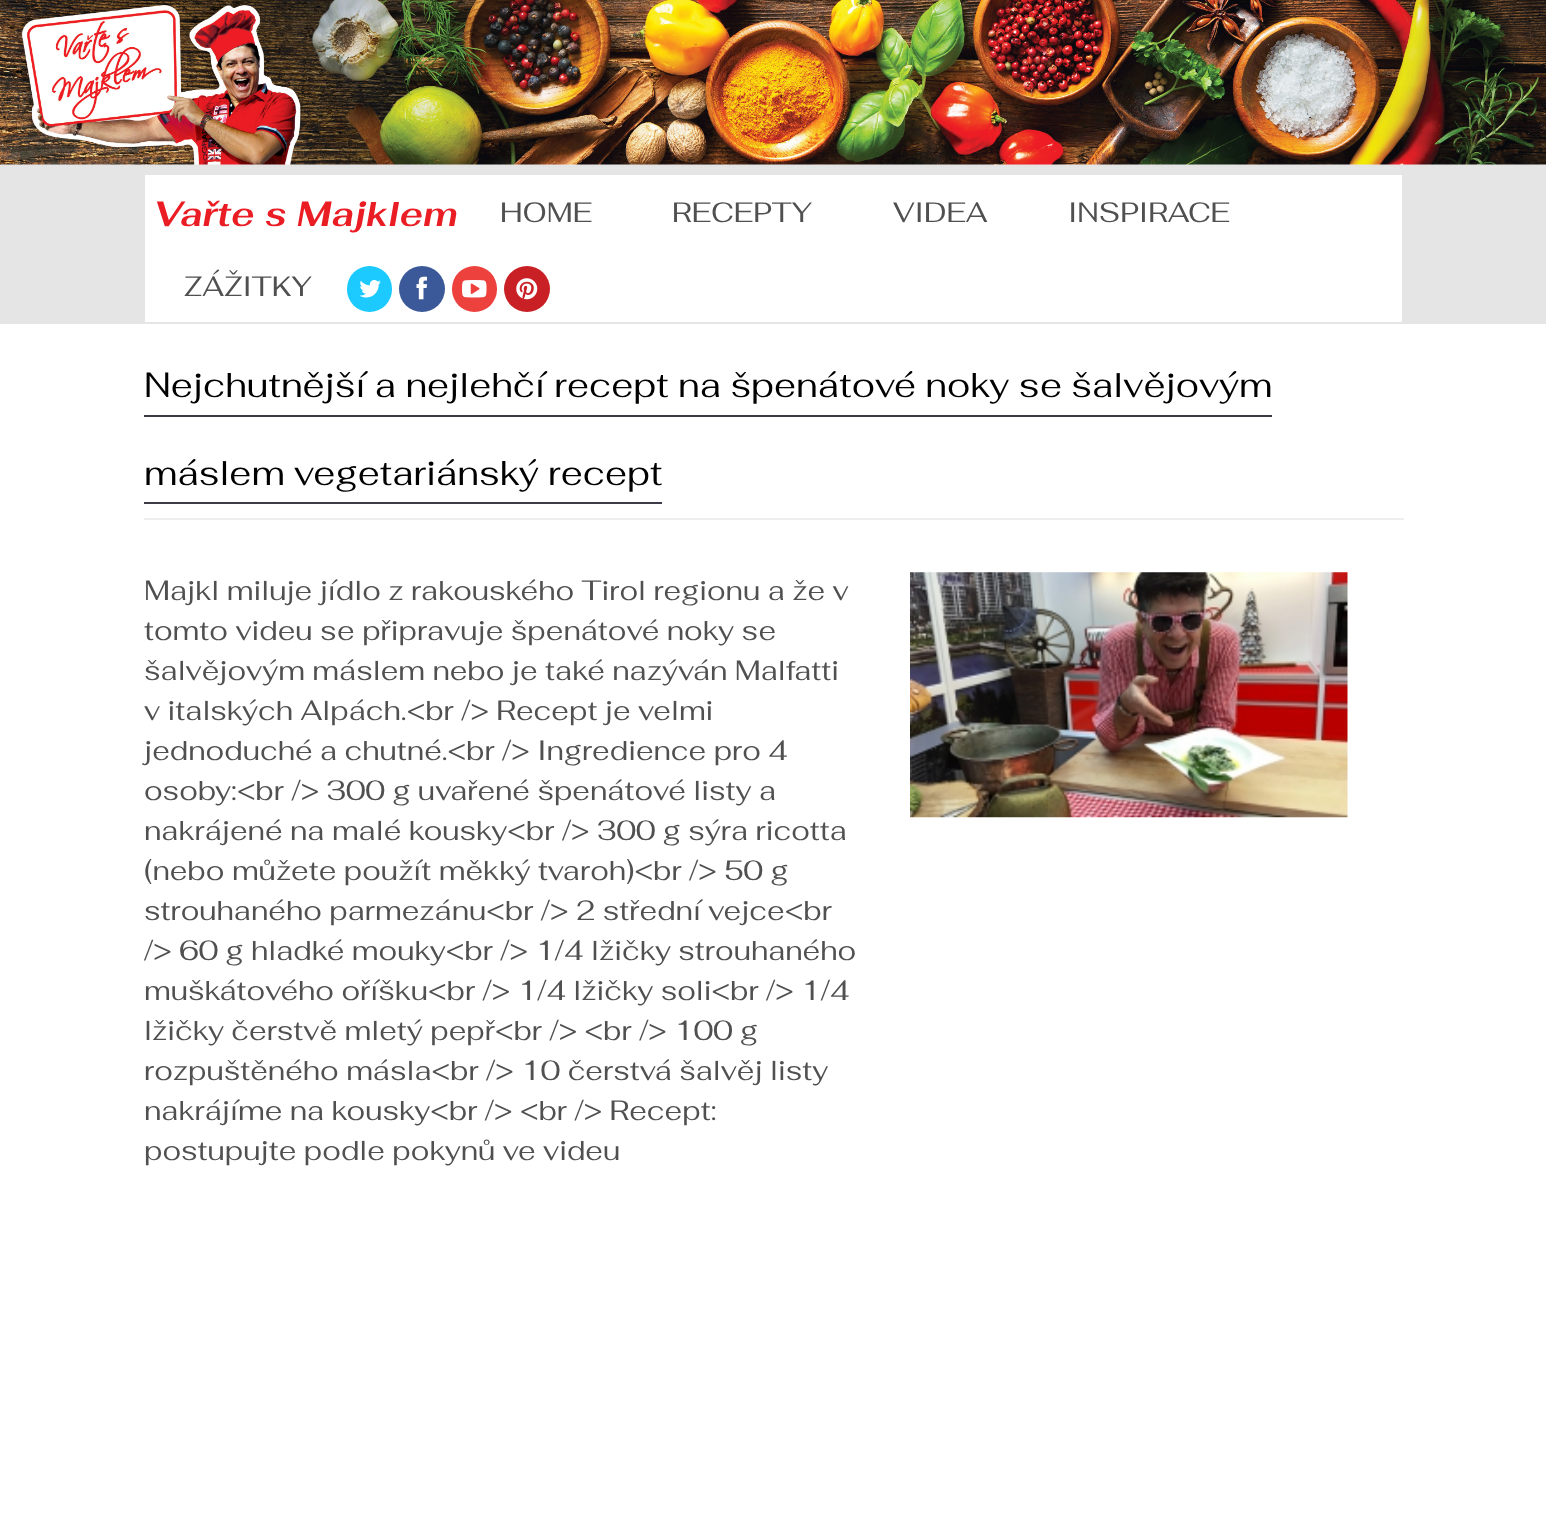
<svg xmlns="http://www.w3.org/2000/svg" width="1546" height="1528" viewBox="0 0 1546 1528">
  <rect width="100%" height="100%" fill="#fff"/>
  <path d="M0 164h1546v160H0z" fill="#e5e5e5"/>
  <image x="0" y="0" width="1546" height="165" href="img/1.png"/>
  <path d="M145 175h1257v147H145z" fill="#fff"/>
  <rect x="347" y="266" width="45" height="46" rx="22.5" fill="#1dcaff"/>
  <image x="359" y="280" width="22" height="18" href="img/2.png"/>
  <circle cx="422" cy="289" r="23" fill="#3b5998"/>
  <image x="416" y="276" width="11" height="24" href="img/3.png"/>
  <rect x="452" y="266" width="45" height="46" rx="22.5" fill="#ed413e"/>
  <image x="462" y="280" width="25" height="18" href="img/4.png"/>
  <circle cx="527" cy="289" r="23" fill="#c92026"/>
  <image x="516" y="278" width="22" height="22" href="img/5.png"/>
  <path d="M144 518h1260v2H144z" fill="#eee"/>
  <path d="M144 415h1128v2H144z" fill="#3e3a48"/>
  <path d="M144 502h518v2H144z" fill="#3e3a48"/>
  <image x="910" y="572" width="438" height="246" href="img/6.png"/>
  <text x="154" y="226" font-family="Fahkwang" font-size="35" font-weight="bold" font-style="italic" fill="#ea1d24">Vařte s Majklem</text>
  <g font-family="Fahkwang" font-size="28" fill="#505050">
    <text x="500" y="222">HOME</text>
    <text x="672" y="222">RECEPTY</text>
    <text x="893" y="222">VIDEA</text>
    <text x="1068" y="222">INSPIRACE</text>
    <text x="184" y="296">ZÁŽITKY</text>
  </g>
  <g font-family="Fahkwang" font-size="35" fill="#000">
    <text x="144" y="397">Nejchutnější a nejlehčí recept na špenátové noky se šalvějovým</text>
    <text x="144" y="485">máslem vegetariánský recept</text>
  </g>
  <g font-family="Fahkwang" font-size="28" fill="#505050">
    <text x="144" y="600">Majkl miluje jídlo z rakouského Tirol regionu a že v</text>
    <text x="144" y="640">tomto videu se připravuje špenátové noky se</text>
    <text x="144" y="680">šalvějovým máslem nebo je také nazýván Malfatti</text>
    <text x="144" y="720">v italských Alpách.&lt;br /&gt; Recept je velmi</text>
    <text x="144" y="760">jednoduché a chutné.&lt;br /&gt; Ingredience pro 4</text>
    <text x="144" y="800">osoby:&lt;br /&gt; 300 g uvařené špenátové listy a</text>
    <text x="144" y="840">nakrájené na malé kousky&lt;br /&gt; 300 g sýra ricotta</text>
    <text x="144" y="880">(nebo můžete použít měkký tvaroh)&lt;br /&gt; 50 g</text>
    <text x="144" y="920">strouhaného parmezánu&lt;br /&gt; 2 střední vejce&lt;br</text>
    <text x="144" y="960">/&gt; 60 g hladké mouky&lt;br /&gt; 1/4 lžičky strouhaného</text>
    <text x="144" y="1000">muškátového oříšku&lt;br /&gt; 1/4 lžičky soli&lt;br /&gt; 1/4</text>
    <text x="144" y="1040">lžičky čerstvě mletý pepř&lt;br /&gt; &lt;br /&gt; 100 g</text>
    <text x="144" y="1080">rozpuštěného másla&lt;br /&gt; 10 čerstvá šalvěj listy</text>
    <text x="144" y="1120">nakrájíme na kousky&lt;br /&gt; &lt;br /&gt; Recept:</text>
    <text x="144" y="1160">postupujte podle pokynů ve videu</text>
  </g>
</svg>
